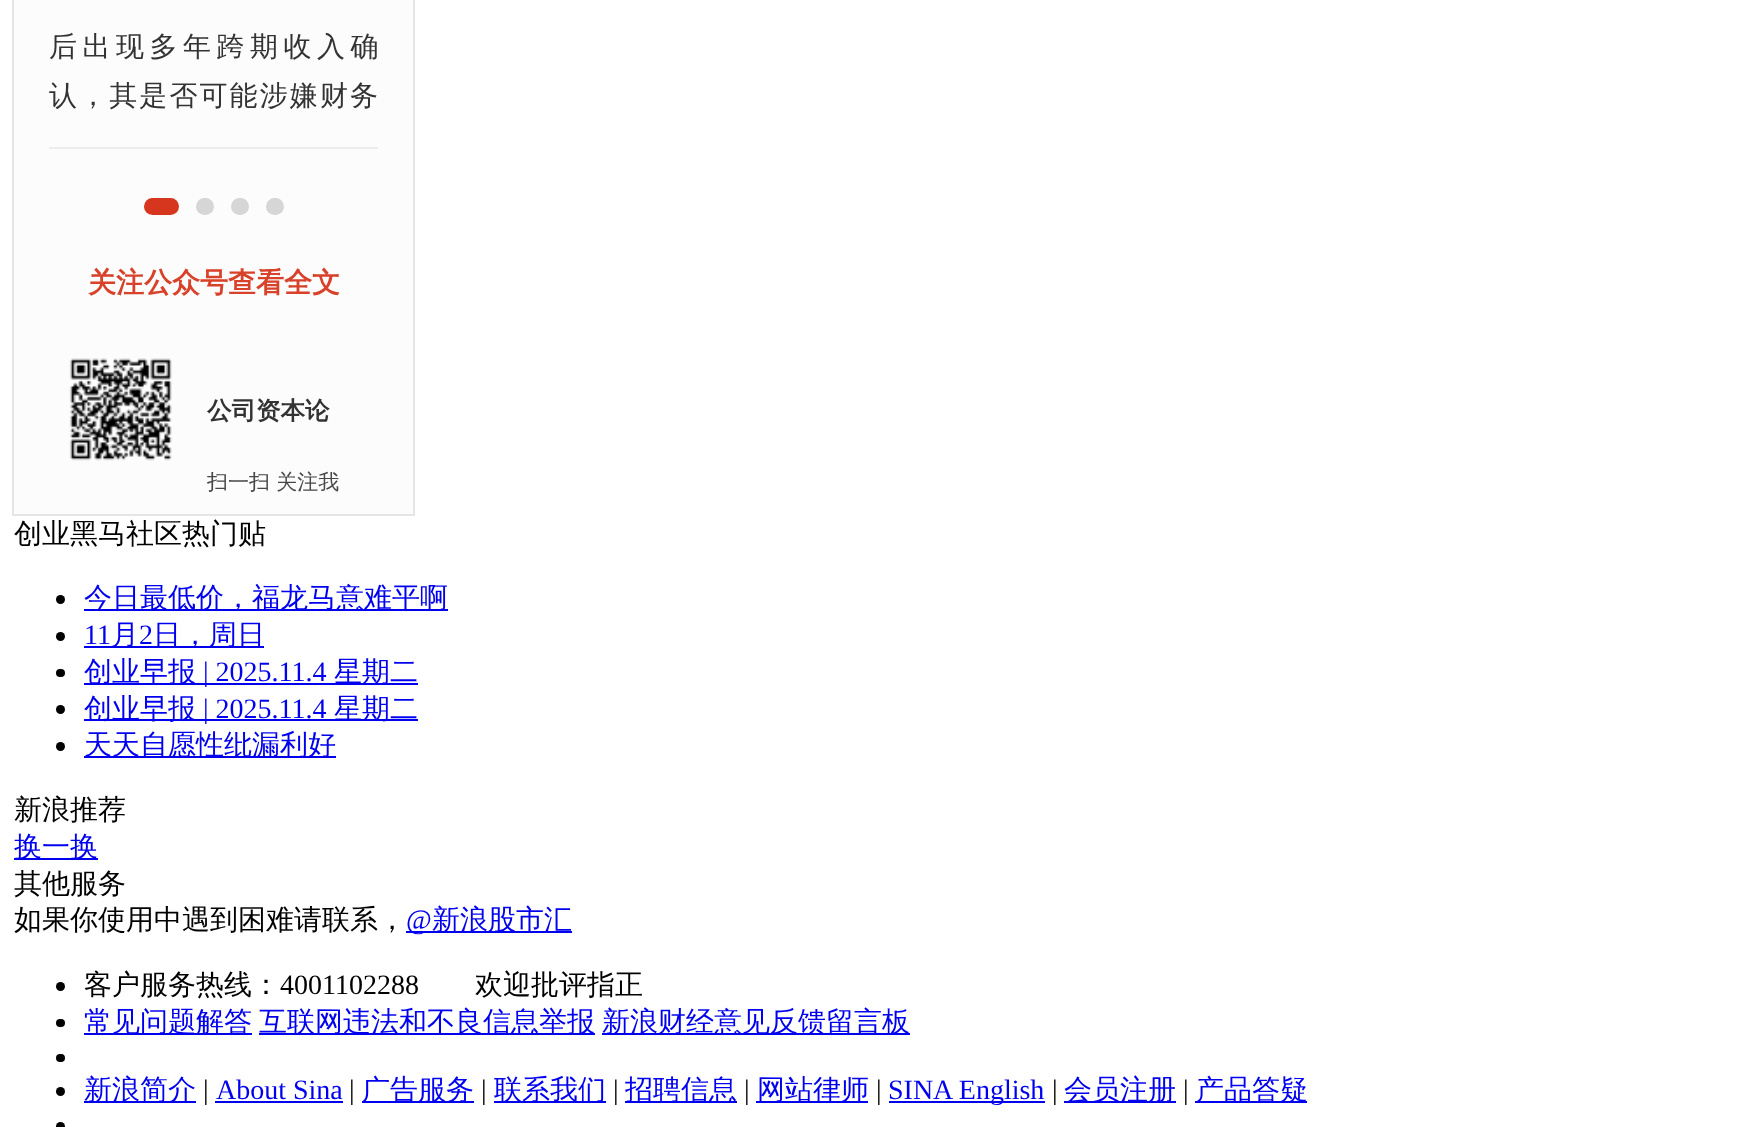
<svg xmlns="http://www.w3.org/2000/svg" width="1754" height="1127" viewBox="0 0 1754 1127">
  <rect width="100%" height="100%" fill="#fff"/>
  <path d="M13 -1h401v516H13z" fill="#fcfcfc" stroke="#e5e5e5" stroke-width="2"/>
  <path d="M49 147h329v2H49z" fill="#ececec"/>
  <rect x="144" y="198" width="35" height="17" rx="8.5" fill="#d5361d"/>
  <rect x="196" y="198" width="18" height="17" rx="8.5" fill="#d6d6d6"/>
  <rect x="231" y="198" width="18" height="17" rx="8.5" fill="#d6d6d6"/>
  <rect x="266" y="198" width="18" height="17" rx="8.5" fill="#d6d6d6"/>
  <image x="69" y="358" width="103" height="103" href="img/1.png"/>
  <circle cx="60.5" cy="599.5" r="4.5" fill="#000"/>
  <path d="M84 609h364v2H84z" fill="#00e"/>
  <circle cx="60.5" cy="636.5" r="4.5" fill="#000"/>
  <path d="M84 646h180v2H84z" fill="#00e"/>
  <rect x="56" y="669" width="9" height="8" rx="4" fill="#000"/>
  <path d="M84 683h334v2H84z" fill="#00e"/>
  <circle cx="60.5" cy="709.5" r="4.5" fill="#000"/>
  <path d="M84 719h334v2H84z" fill="#00e"/>
  <circle cx="60.5" cy="746.5" r="4.5" fill="#000"/>
  <path d="M84 756h252v2H84z" fill="#00e"/>
  <path d="M14 858h84v2H14z" fill="#00e"/>
  <path d="M406 931h166v2H406z" fill="#00e"/>
  <circle cx="60.5" cy="986.5" r="4.5" fill="#000"/>
  <rect x="56" y="1019" width="9" height="8" rx="4" fill="#000"/>
  <path d="M84 1033h168v2H84z" fill="#00e"/>
  <path d="M259 1033h336v2H259z" fill="#00e"/>
  <path d="M602 1033h308v2H602z" fill="#00e"/>
  <rect x="56" y="1054" width="9" height="8" rx="4" fill="#000"/>
  <circle cx="60.5" cy="1091.5" r="4.5" fill="#000"/>
  <path d="M84 1101h112v2H84z" fill="#00e"/>
  <path d="M215 1101h128v2H215z" fill="#00e"/>
  <path d="M362 1101h112v2H362z" fill="#00e"/>
  <path d="M494 1101h112v2H494z" fill="#00e"/>
  <path d="M625 1101h112v2H625z" fill="#00e"/>
  <path d="M756 1101h112v2H756z" fill="#00e"/>
  <path d="M889 1101h156v2H889z" fill="#00e"/>
  <path d="M1064 1101h112v2H1064z" fill="#00e"/>
  <path d="M1195 1101h112v2H1195z" fill="#00e"/>
  <circle cx="60.5" cy="1126.5" r="4.5" fill="#000"/>
  <text x="49" y="56" font-family="WenQuanYi Zen Hei" font-size="28" font-weight="500" letter-spacing="5.5" fill="#333">后出现多年跨期收入确</text>
  <text x="49" y="105" font-family="WenQuanYi Zen Hei" font-size="28" font-weight="500" letter-spacing="2.1" fill="#333">认，其是否可能涉嫌财务</text>
  <text x="88" y="292" font-family="WenQuanYi Zen Hei" font-size="28" font-weight="bold" fill="#d8422a">关注公众号查看全文</text>
  <text x="207" y="419" font-family="WenQuanYi Zen Hei" font-size="24.5" font-weight="bold" fill="#333">公司资本论</text>
  <text x="207" y="489" font-family="WenQuanYi Zen Hei" font-size="21" font-weight="500" fill="#474747">扫一扫 关注我</text>
  <text x="14" y="543" font-family="WenQuanYi Zen Hei" font-size="28" font-weight="500" fill="#000">创业黑马社区热门贴</text>
  <text x="84" y="607" font-family="WenQuanYi Zen Hei" font-size="28" font-weight="500" fill="#00e">今日最低价，福龙马意难平啊</text>
  <text x="84" y="644" font-family="Liberation Serif" font-size="28" fill="#00e">11</text>
  <text x="111" y="644" font-family="WenQuanYi Zen Hei" font-size="28" font-weight="500" fill="#00e">月</text>
  <text x="139" y="644" font-family="Liberation Serif" font-size="28" fill="#00e">2</text>
  <g font-family="WenQuanYi Zen Hei" font-size="28" font-weight="500" fill="#00e">
    <text x="153" y="644">日，周日</text>
    <text x="84" y="681">创业早报</text>
  </g>
  <text x="203" y="681" font-family="Liberation Serif" font-size="28" fill="#00e">| 2025.11.4</text>
  <g font-family="WenQuanYi Zen Hei" font-size="28" font-weight="500" fill="#00e">
    <text x="334" y="681">星期二</text>
    <text x="84" y="718">创业早报</text>
  </g>
  <text x="203" y="718" font-family="Liberation Serif" font-size="28" fill="#00e">| 2025.11.4</text>
  <g font-family="WenQuanYi Zen Hei" font-size="28" font-weight="500" fill="#00e">
    <text x="334" y="718">星期二</text>
    <text x="84" y="754">天天自愿性纰漏利好</text>
  </g>
  <text x="14" y="819" font-family="WenQuanYi Zen Hei" font-size="28" font-weight="500" fill="#000">新浪推荐</text>
  <text x="14" y="856" font-family="WenQuanYi Zen Hei" font-size="28" font-weight="500" fill="#00e">换一换</text>
  <g font-family="WenQuanYi Zen Hei" font-size="28" font-weight="500" fill="#000">
    <text x="14" y="893">其他服务</text>
    <text x="14" y="929">如果你使用中遇到困难请联系，</text>
  </g>
  <text x="406" y="929" font-family="Liberation Serif" font-size="28" fill="#00e">@</text>
  <text x="432" y="929" font-family="WenQuanYi Zen Hei" font-size="28" font-weight="500" fill="#00e">新浪股市汇</text>
  <text x="84" y="994" font-family="WenQuanYi Zen Hei" font-size="28" font-weight="500" fill="#000">客户服务热线：</text>
  <text x="280" y="994" font-family="Liberation Serif" font-size="28" fill="#000">4001102288</text>
  <text x="475" y="994" font-family="WenQuanYi Zen Hei" font-size="28" font-weight="500" fill="#000">欢迎批评指正</text>
  <g font-family="WenQuanYi Zen Hei" font-size="28" font-weight="500" fill="#00e">
    <text x="84" y="1031">常见问题解答</text>
    <text x="259" y="1031">互联网违法和不良信息举报</text>
    <text x="602" y="1031">新浪财经意见反馈留言板</text>
    <text x="84" y="1099">新浪简介</text>
  </g>
  <text x="203" y="1099" font-family="Liberation Serif" font-size="28" fill="#000">|</text>
  <text x="216" y="1099" font-family="Liberation Serif" font-size="28" fill="#00e">About Sina</text>
  <text x="349" y="1099" font-family="Liberation Serif" font-size="28" fill="#000">|</text>
  <text x="362" y="1099" font-family="WenQuanYi Zen Hei" font-size="28" font-weight="500" fill="#00e">广告服务</text>
  <text x="481" y="1099" font-family="Liberation Serif" font-size="28" fill="#000">|</text>
  <text x="494" y="1099" font-family="WenQuanYi Zen Hei" font-size="28" font-weight="500" fill="#00e">联系我们</text>
  <text x="613" y="1099" font-family="Liberation Serif" font-size="28" fill="#000">|</text>
  <text x="625" y="1099" font-family="WenQuanYi Zen Hei" font-size="28" font-weight="500" fill="#00e">招聘信息</text>
  <text x="744" y="1099" font-family="Liberation Serif" font-size="28" fill="#000">|</text>
  <text x="757" y="1099" font-family="WenQuanYi Zen Hei" font-size="28" font-weight="500" fill="#00e">网站律师</text>
  <text x="876" y="1099" font-family="Liberation Serif" font-size="28" fill="#000">|</text>
  <text x="888" y="1099" font-family="Liberation Serif" font-size="28" fill="#00e">SINA English</text>
  <text x="1052" y="1099" font-family="Liberation Serif" font-size="28" fill="#000">|</text>
  <text x="1064" y="1099" font-family="WenQuanYi Zen Hei" font-size="28" font-weight="500" fill="#00e">会员注册</text>
  <text x="1183" y="1099" font-family="Liberation Serif" font-size="28" fill="#000">|</text>
  <text x="1196" y="1099" font-family="WenQuanYi Zen Hei" font-size="28" font-weight="500" fill="#00e">产品答疑</text>
</svg>
